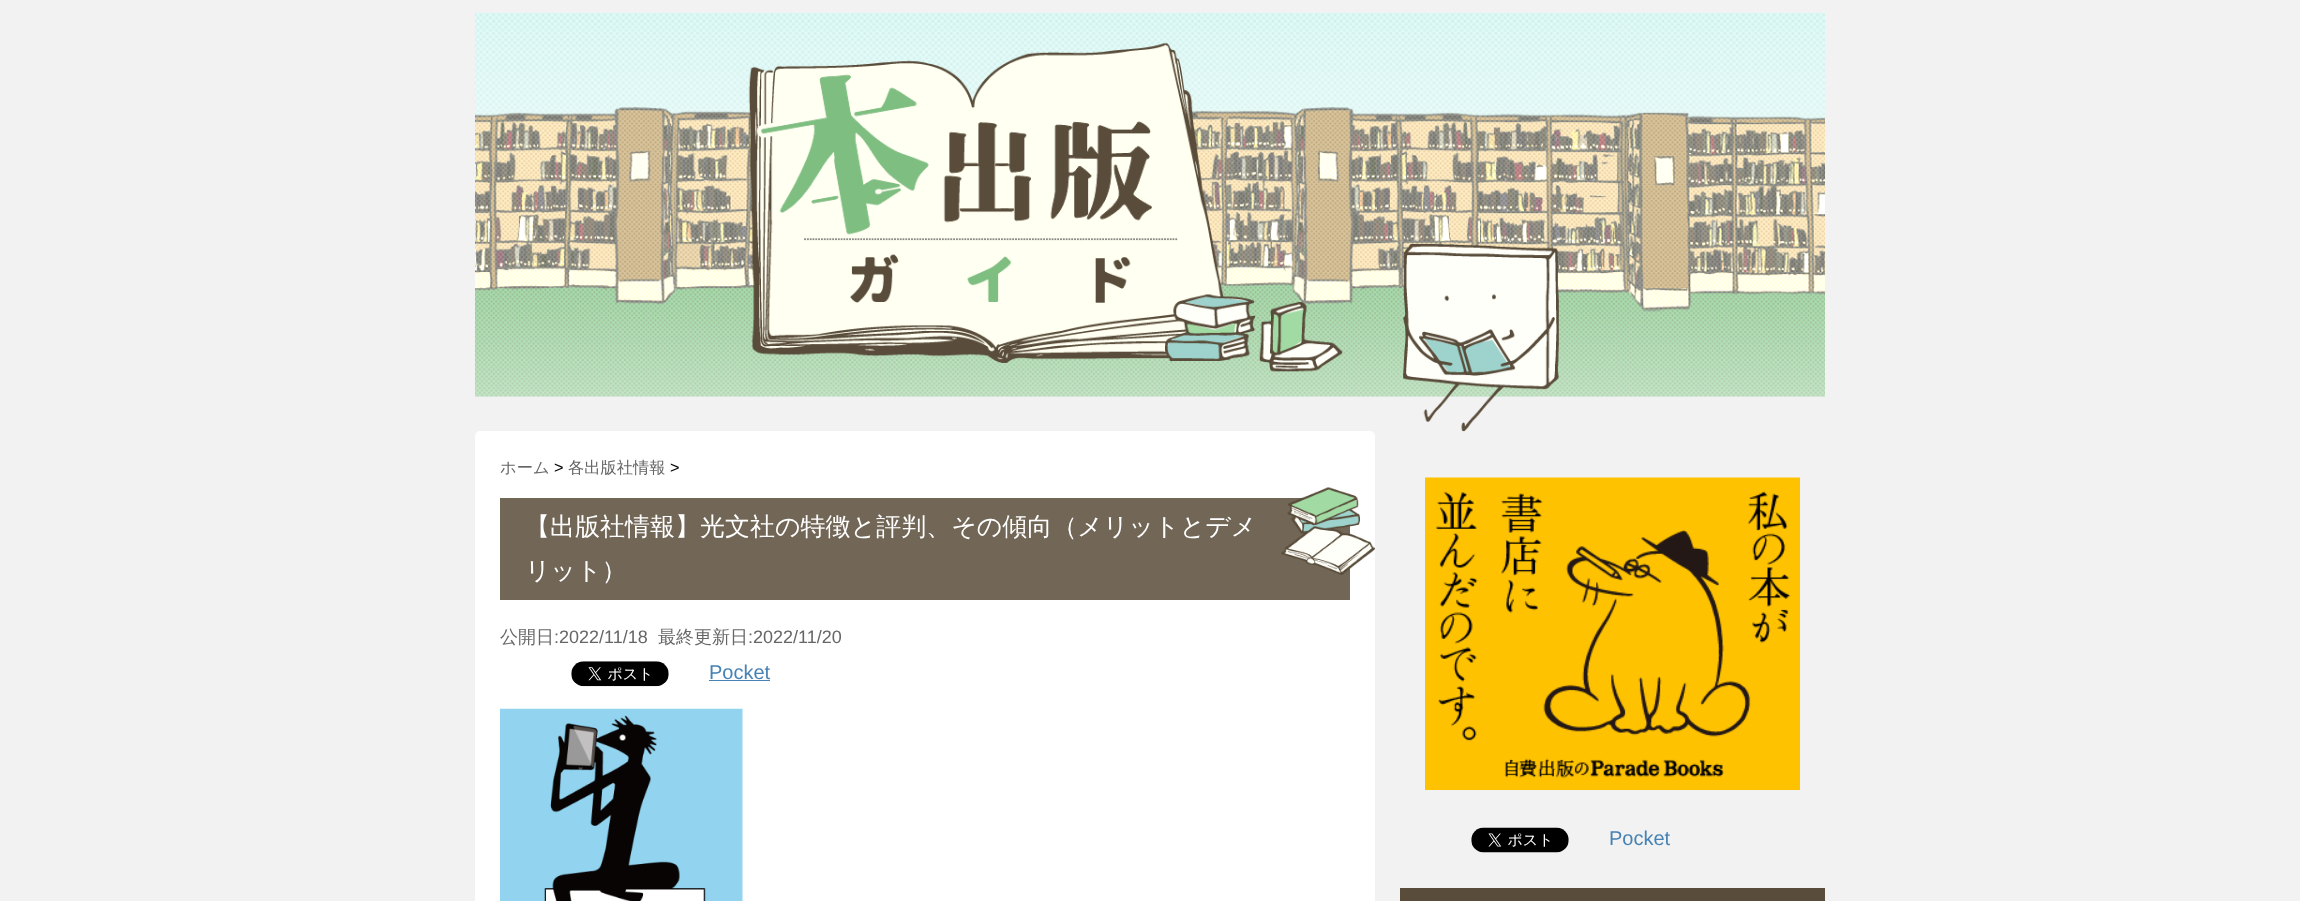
<svg xmlns="http://www.w3.org/2000/svg" width="2300" height="901" viewBox="0 0 2300 901">
  <rect width="100%" height="100%" fill="#f2f2f2"/>
  <rect x="475" y="431" width="900" height="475" rx="5" fill="#fff"/>
  <image x="475" y="12" width="1350" height="420" href="img/1.png"/>
  <path d="M500 498h850v102H500z" fill="#726757"/>
  <image x="1281" y="487" width="94" height="88" href="img/2.png"/>
  <image x="571" y="661" width="98" height="26" href="img/3.png"/>
  <path d="M709 680h61v1H709z" fill="#4682b4"/>
  <image x="500" y="708" width="243" height="193" href="img/4.png"/>
  <image x="1425" y="477" width="375" height="313" href="img/5.png"/>
  <image x="1471" y="827" width="98" height="26" href="img/6.png"/>
  <path d="M1400 888h425v13H1400z" fill="#594c3a"/>
  <text x="500" y="473" font-family="WenQuanYi Zen Hei" font-size="16.25" font-weight="500" fill="#666">ホーム</text>
  <text x="554" y="473" font-family="Liberation Sans" font-size="16.25" fill="#000">&gt;</text>
  <text x="568" y="473" font-family="WenQuanYi Zen Hei" font-size="16.25" font-weight="500" fill="#666">各出版社情報</text>
  <text x="670" y="473" font-family="Liberation Sans" font-size="16.25" fill="#000">&gt;</text>
  <g font-family="WenQuanYi Zen Hei" font-size="25" font-weight="500" fill="#fff">
    <text x="525" y="535">【出版社情報】光文社の特徴と評判、その傾向（メリットとデメ</text>
    <text x="525" y="579">リット）</text>
  </g>
  <text x="500" y="643" font-family="WenQuanYi Zen Hei" font-size="18" font-weight="500" fill="#666">公開日</text>
  <text x="554" y="643" font-family="Liberation Sans" font-size="18" fill="#666">:2022/11/18</text>
  <text x="658" y="643" font-family="WenQuanYi Zen Hei" font-size="18" font-weight="500" fill="#666">最終更新日</text>
  <text x="748" y="643" font-family="Liberation Sans" font-size="18" fill="#666">:2022/11/20</text>
  <g font-family="Liberation Sans" font-size="20" fill="#4682b4">
    <text x="709" y="679">Pocket</text>
    <text x="1609" y="845">Pocket</text>
  </g>
</svg>
